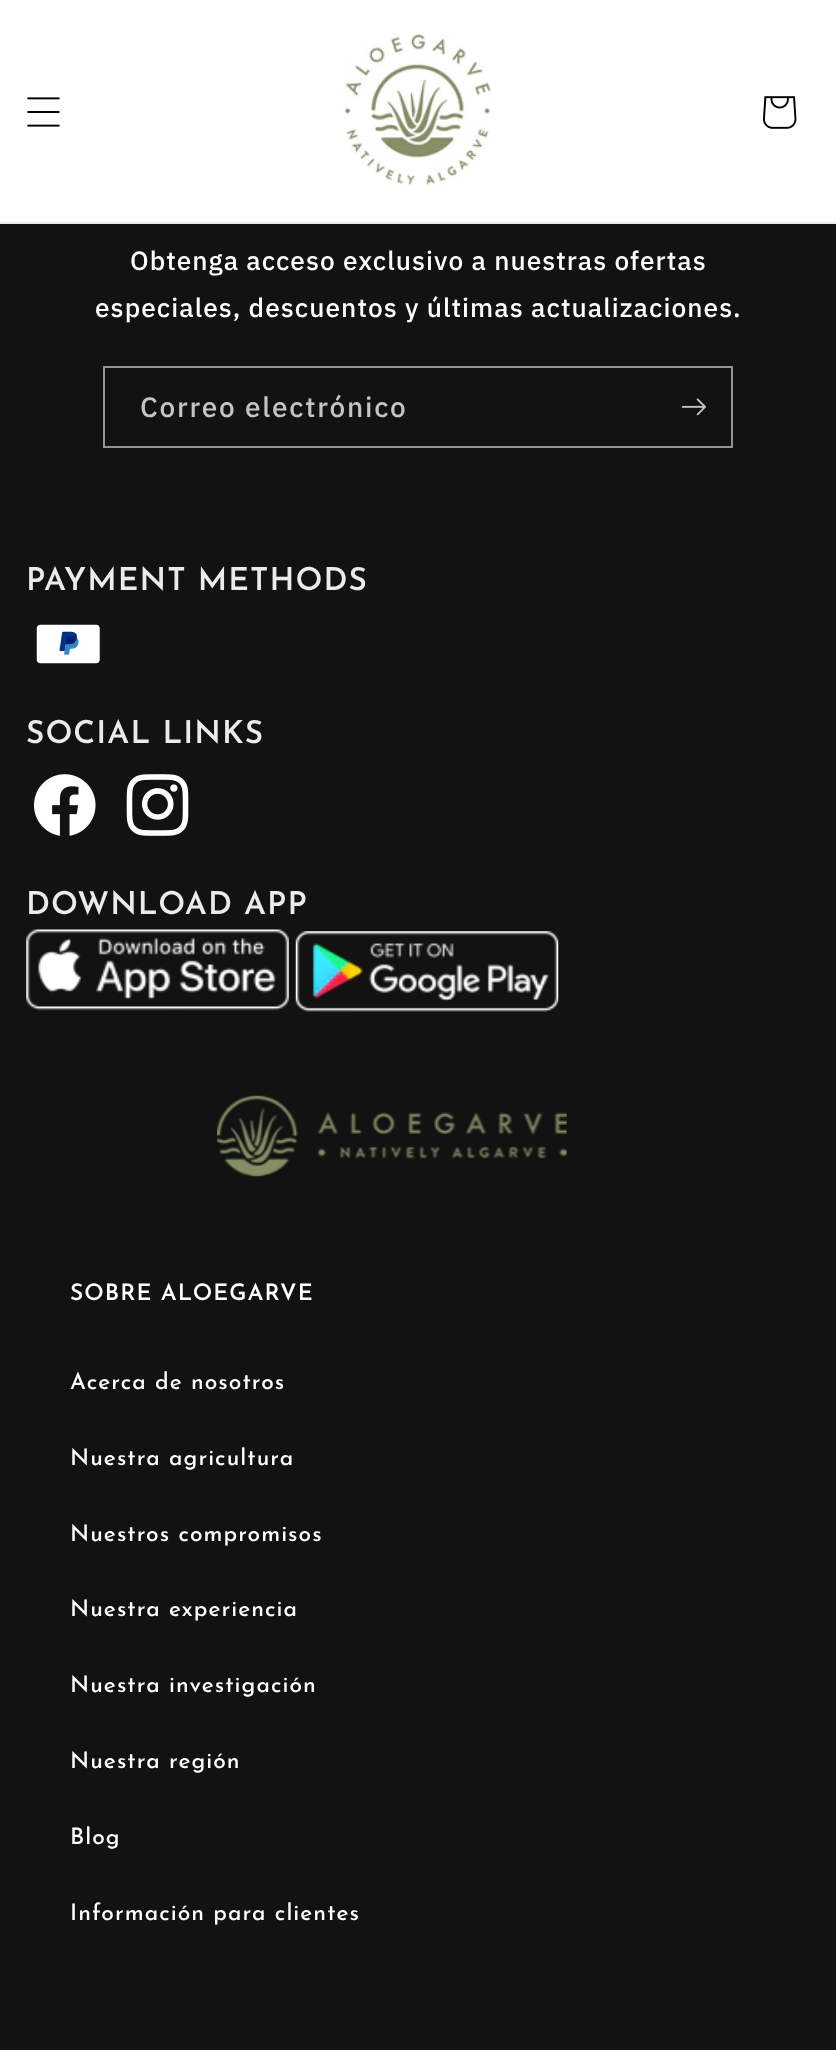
<svg xmlns="http://www.w3.org/2000/svg" width="836" height="2050" viewBox="0 0 836 2050">
  <rect width="100%" height="100%" fill="#121212"/>
  <path d="M0 0h836v222H0z" fill="#fff"/>
  <path d="M0 222h836v2H0z" fill="#ebebeb"/>
  <image x="27" y="97" width="33" height="30" href="img/1.png"/>
  <image x="344" y="34" width="147" height="151" href="img/2.png"/>
  <image x="763" y="96" width="34" height="33" href="img/3.png"/>
  <path d="M104 367h628v80H104z" fill="none" stroke="#949494" stroke-width="2"/>
  <image x="681" y="398" width="25" height="18" href="img/4.png"/>
  <image x="36" y="624" width="64" height="40" href="img/5.png"/>
  <image x="33" y="774" width="63" height="62" href="img/6.png"/>
  <image x="126" y="774" width="63" height="62" href="img/7.png"/>
  <image x="26" y="929" width="263" height="82" href="img/8.png"/>
  <image x="295" y="931" width="264" height="81" href="img/9.png"/>
  <image x="217" y="1095" width="350" height="82" href="img/10.png"/>
  <g font-family="IBM Plex Sans" font-size="26.25" font-weight="500" letter-spacing="1.05" fill="#fff">
    <text x="130" y="270">Obtenga acceso exclusivo a nuestras ofertas</text>
    <text x="95" y="317">especiales, descuentos y últimas actualizaciones.</text>
  </g>
  <text x="140" y="417" font-family="IBM Plex Sans" font-size="28" font-weight="500" letter-spacing="1.75" fill="#c4c4c4">Correo electrónico</text>
  <g font-family="Josefin Sans" font-size="31.5" font-weight="600" letter-spacing="1.05" fill="#ebebeb">
    <text x="26" y="590">PAYMENT METHODS</text>
    <text x="26" y="743">SOCIAL LINKS</text>
    <text x="26" y="914">DOWNLOAD APP</text>
  </g>
  <text x="70" y="1300" font-family="Josefin Sans" font-size="22.75" font-weight="600" letter-spacing="1.05" fill="#fff">SOBRE ALOEGARVE</text>
  <g font-family="Josefin Sans" font-size="22.75" font-weight="500" letter-spacing="1.05" fill="#fff">
    <text x="70" y="1389">Acerca de nosotros</text>
    <text x="70" y="1465">Nuestra agricultura</text>
    <text x="70" y="1541">Nuestros compromisos</text>
    <text x="70" y="1616">Nuestra experiencia</text>
    <text x="70" y="1692">Nuestra investigación</text>
    <text x="70" y="1768">Nuestra región</text>
    <text x="70" y="1844">Blog</text>
    <text x="70" y="1920">Información para clientes</text>
  </g>
</svg>
